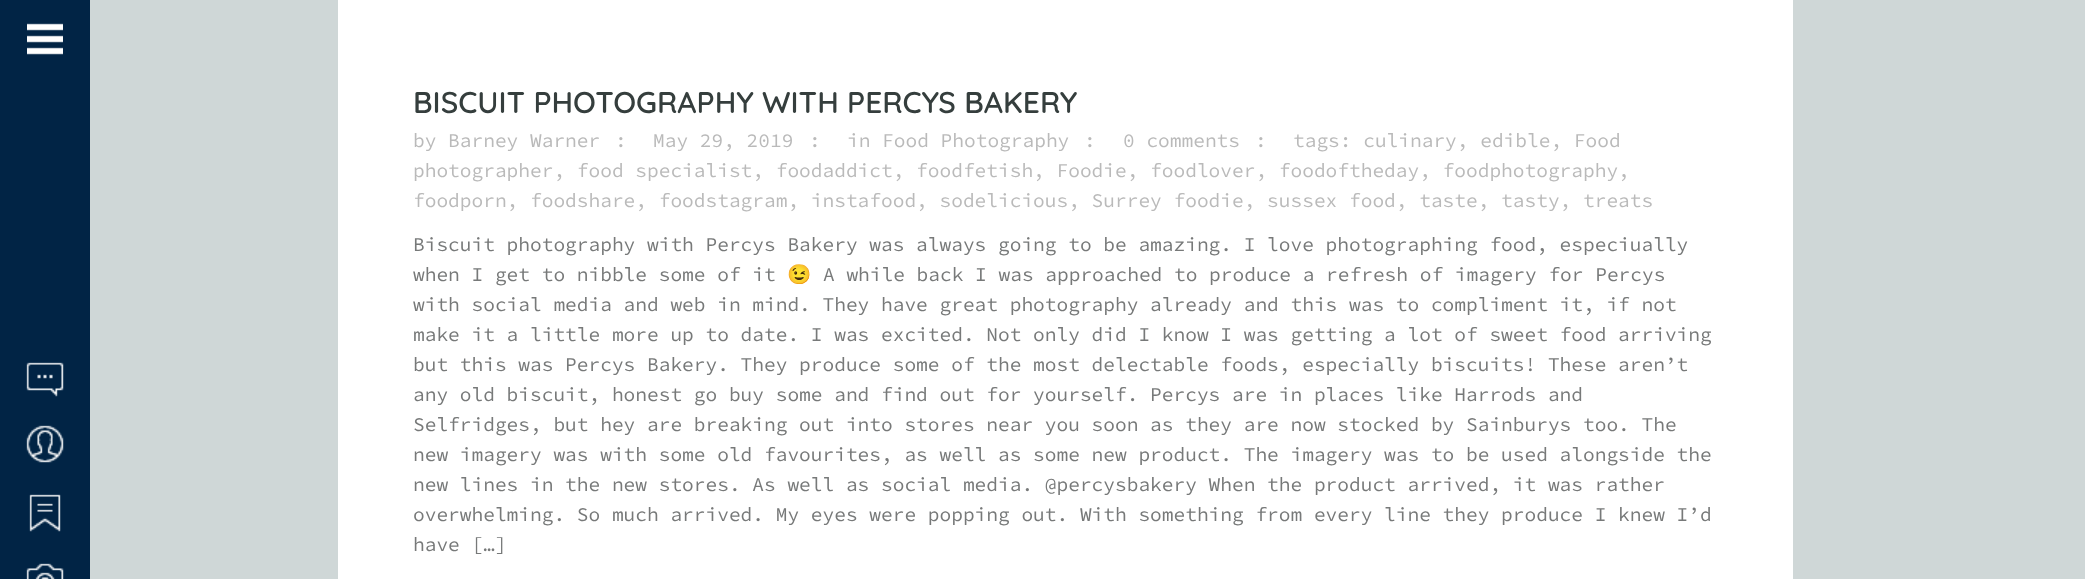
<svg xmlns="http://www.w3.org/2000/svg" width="2085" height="579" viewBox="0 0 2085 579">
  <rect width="100%" height="100%" fill="#cfd7d7"/>
  <path d="M0 0h90v579H0z" fill="#012445"/>
  <image x="27" y="23" width="36" height="32" href="img/1.png"/>
  <image x="26" y="362" width="38" height="35" href="img/2.png"/>
  <image x="26" y="425" width="38" height="38" href="img/3.png"/>
  <image x="29" y="494" width="32" height="38" href="img/4.png"/>
  <image x="26" y="563" width="38" height="16" href="img/5.png"/>
  <path d="M338 0h1455v579H338z" fill="#fff"/>
  <text x="413" y="113" font-family="Quicksand" font-size="30" font-weight="600" fill="#353e3d">BISCUIT PHOTOGRAPHY WITH PERCYS BAKERY</text>
  <g font-family="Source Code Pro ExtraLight" font-size="19.5" fill="#bababa">
    <text x="413" y="147">by Barney Warner</text>
    <text x="615" y="147">:</text>
    <text x="653" y="147">May 29, 2019</text>
    <text x="809" y="147">:</text>
    <text x="847" y="147">in Food Photography</text>
    <text x="1084" y="147">:</text>
    <text x="1123" y="147">0 comments</text>
    <text x="1255" y="147">:</text>
    <text x="1293" y="147">tags: culinary, edible, Food</text>
    <text x="413" y="177">photographer, food specialist, foodaddict, foodfetish, Foodie, foodlover, foodoftheday, foodphotography,</text>
    <text x="413" y="207">foodporn, foodshare, foodstagram, instafood, sodelicious, Surrey foodie, sussex food, taste, tasty, treats</text>
  </g>
  <g font-family="Source Code Pro ExtraLight" font-size="19.5" fill="#777979">
    <text x="413" y="251">Biscuit photography with Percys Bakery was always going to be amazing. I love photographing food, especiually</text>
    <text x="413" y="281">when I get to nibble some of it</text>
  </g>
  <text x="787" y="281" font-family="Noto Color Emoji" font-size="19.5" fill="#777979">😉</text>
  <g font-family="Source Code Pro ExtraLight" font-size="19.5" fill="#777979">
    <text x="823" y="281">A while back I was approached to produce a refresh of imagery for Percys</text>
    <text x="413" y="311">with social media and web in mind. They have great photography already and this was to compliment it, if not</text>
    <text x="413" y="341">make it a little more up to date. I was excited. Not only did I know I was getting a lot of sweet food arriving</text>
    <text x="413" y="371">but this was Percys Bakery. They produce some of the most delectable foods, especially biscuits! These aren’t</text>
    <text x="413" y="401">any old biscuit, honest go buy some and find out for yourself. Percys are in places like Harrods and</text>
    <text x="413" y="431">Selfridges, but hey are breaking out into stores near you soon as they are now stocked by Sainburys too. The</text>
    <text x="413" y="461">new imagery was with some old favourites, as well as some new product. The imagery was to be used alongside the</text>
    <text x="413" y="491">new lines in the new stores. As well as social media. @percysbakery When the product arrived, it was rather</text>
    <text x="413" y="521">overwhelming. So much arrived. My eyes were popping out. With something from every line they produce I knew I’d</text>
    <text x="413" y="551">have […]</text>
  </g>
</svg>
